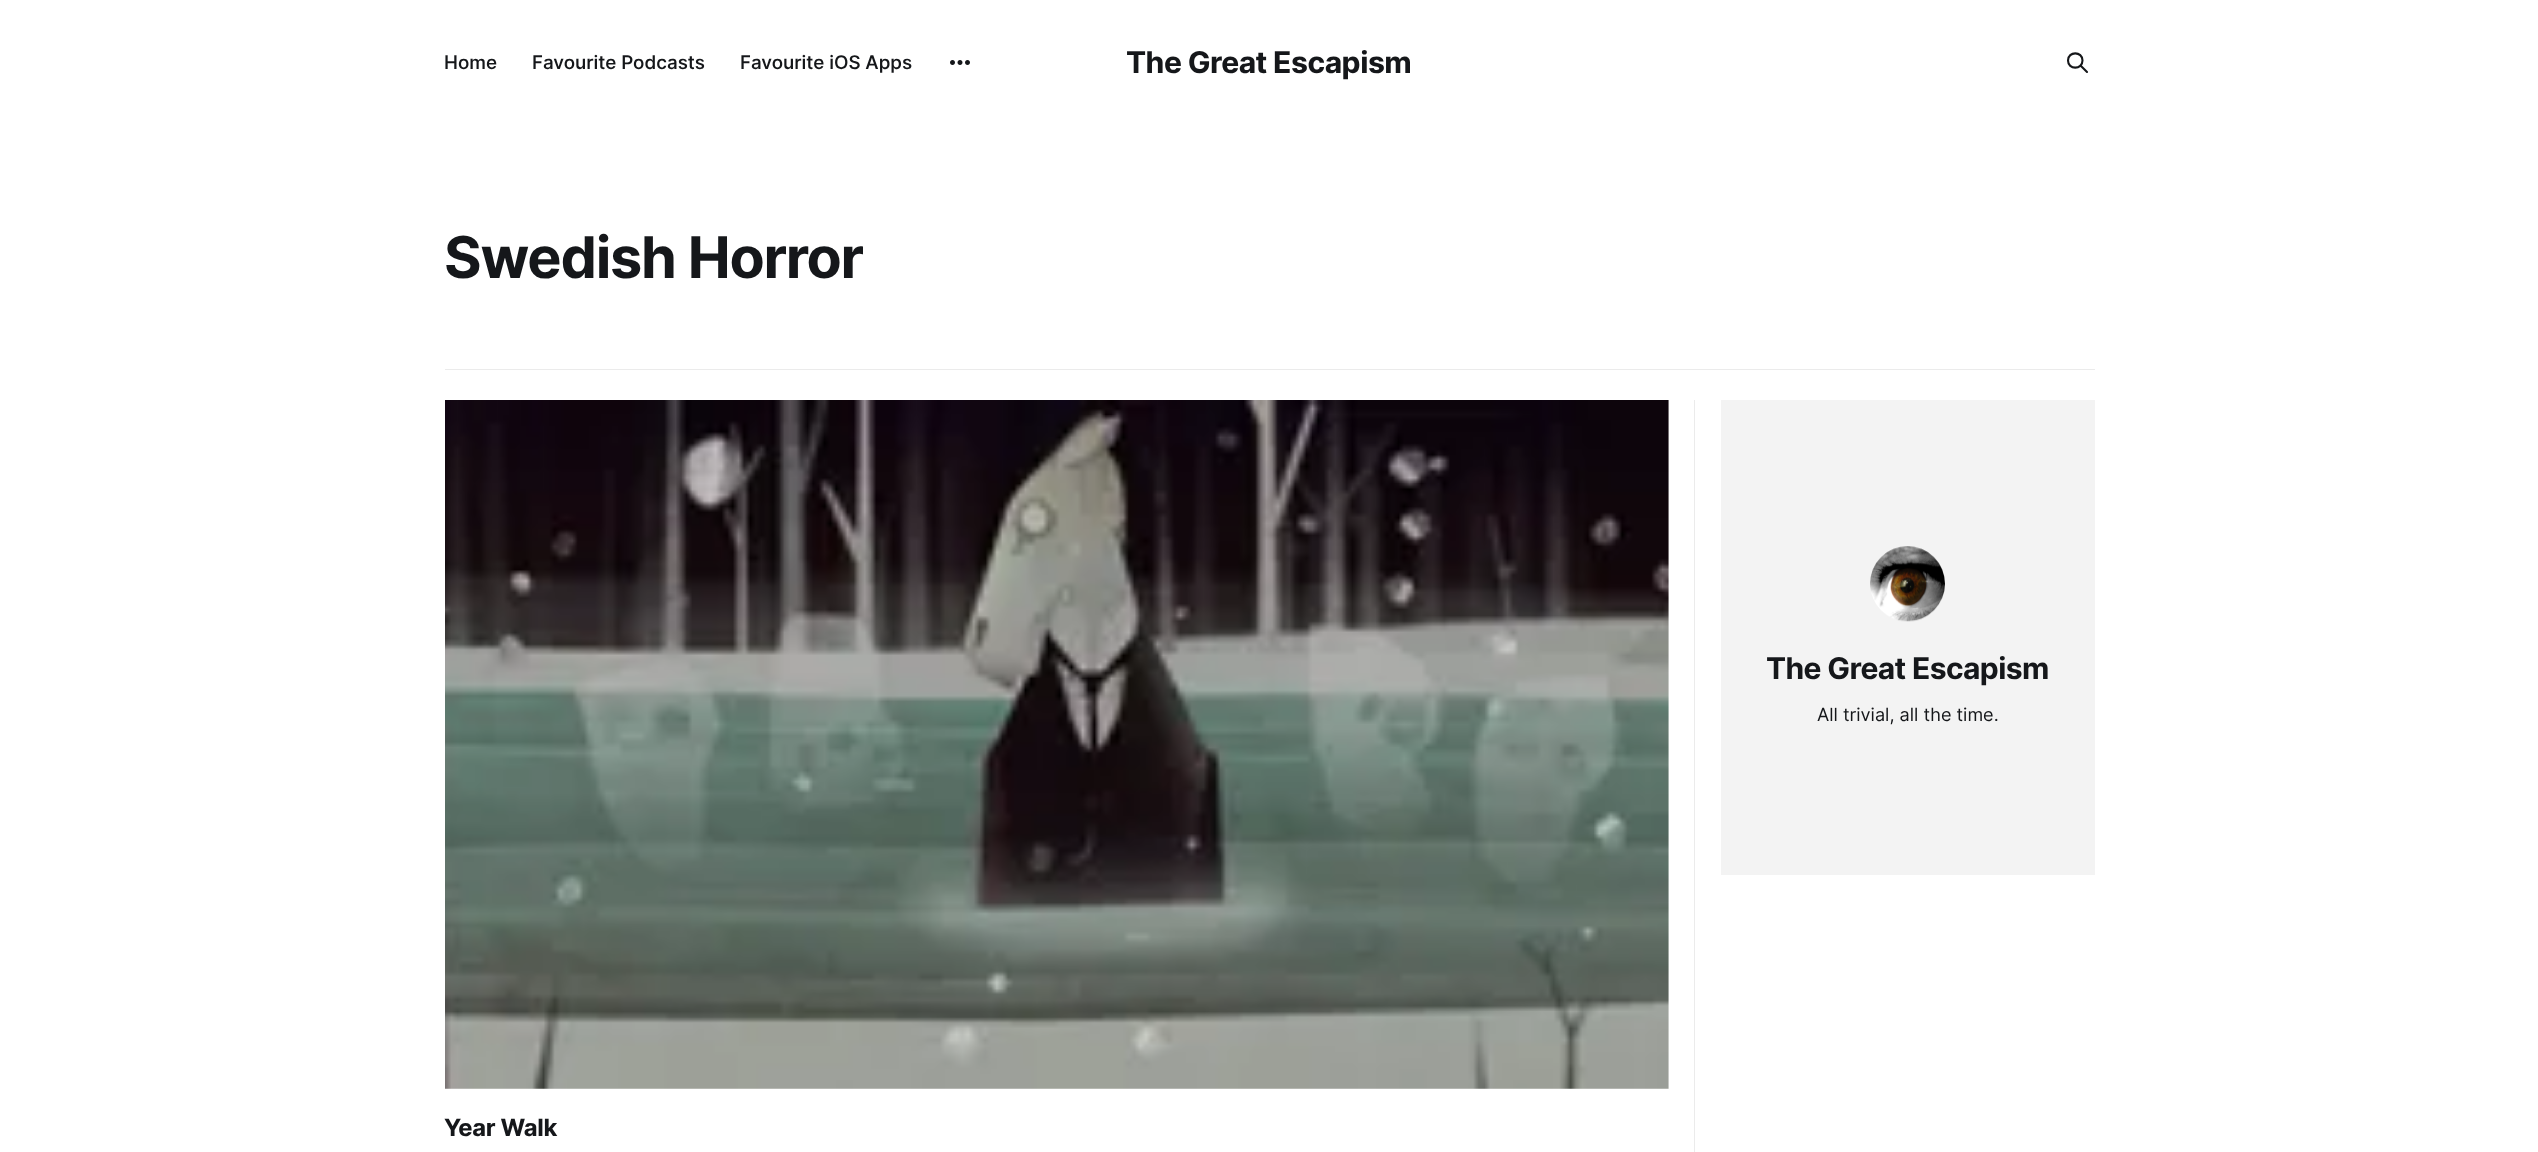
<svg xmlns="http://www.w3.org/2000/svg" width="2538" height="1152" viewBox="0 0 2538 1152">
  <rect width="100%" height="100%" fill="#fff"/>
  <image x="950" y="60" width="20" height="5" href="img/1.png"/>
  <path d="M2087 72L2080.5 65.5M2082.5 60.5C2082.5 70 2068 70 2068 60.5C2068 51 2082.5 51 2082.5 60.5Z" fill="none" stroke="#15171a" stroke-width="2.1" stroke-linecap="round" stroke-linejoin="round"/>
  <path d="M445 369h1650v1H445z" fill="#ebebeb"/>
  <path d="M1721 400h374v475H1721z" fill="#f3f3f3"/>
  <image x="1870" y="546" width="75" height="76" href="img/2.png"/>
  <image x="445" y="400" width="1224" height="689" href="img/3.png"/>
  <path d="M1694 400h1v752H1694z" fill="#ebebeb"/>
  <g font-family="Inter" font-size="18.75" font-weight="500" fill="#15171a">
    <text x="444" y="69">Home</text>
    <text x="532" y="69">Favourite Podcasts</text>
    <text x="740" y="69">Favourite iOS Apps</text>
  </g>
  <text x="1126" y="73" font-family="'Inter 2'" font-size="30" font-weight="bold" letter-spacing="-0.5" fill="#15171a">The Great Escapism</text>
  <text x="444" y="278" font-family="Inter" font-size="57.5" font-weight="bold" letter-spacing="-1.25" fill="#15171a">Swedish Horror</text>
  <text x="1766" y="679" font-family="Inter" font-size="30" font-weight="bold" letter-spacing="-0.6" fill="#15171a">The Great Escapism</text>
  <text x="1817" y="721" font-family="Inter" font-size="18.1" fill="#15171a">All trivial, all the time.</text>
  <text x="444" y="1136" font-family="'Inter 2'" font-size="23.75" font-weight="bold" letter-spacing="-0.25" fill="#15171a">Year Walk</text>
</svg>
